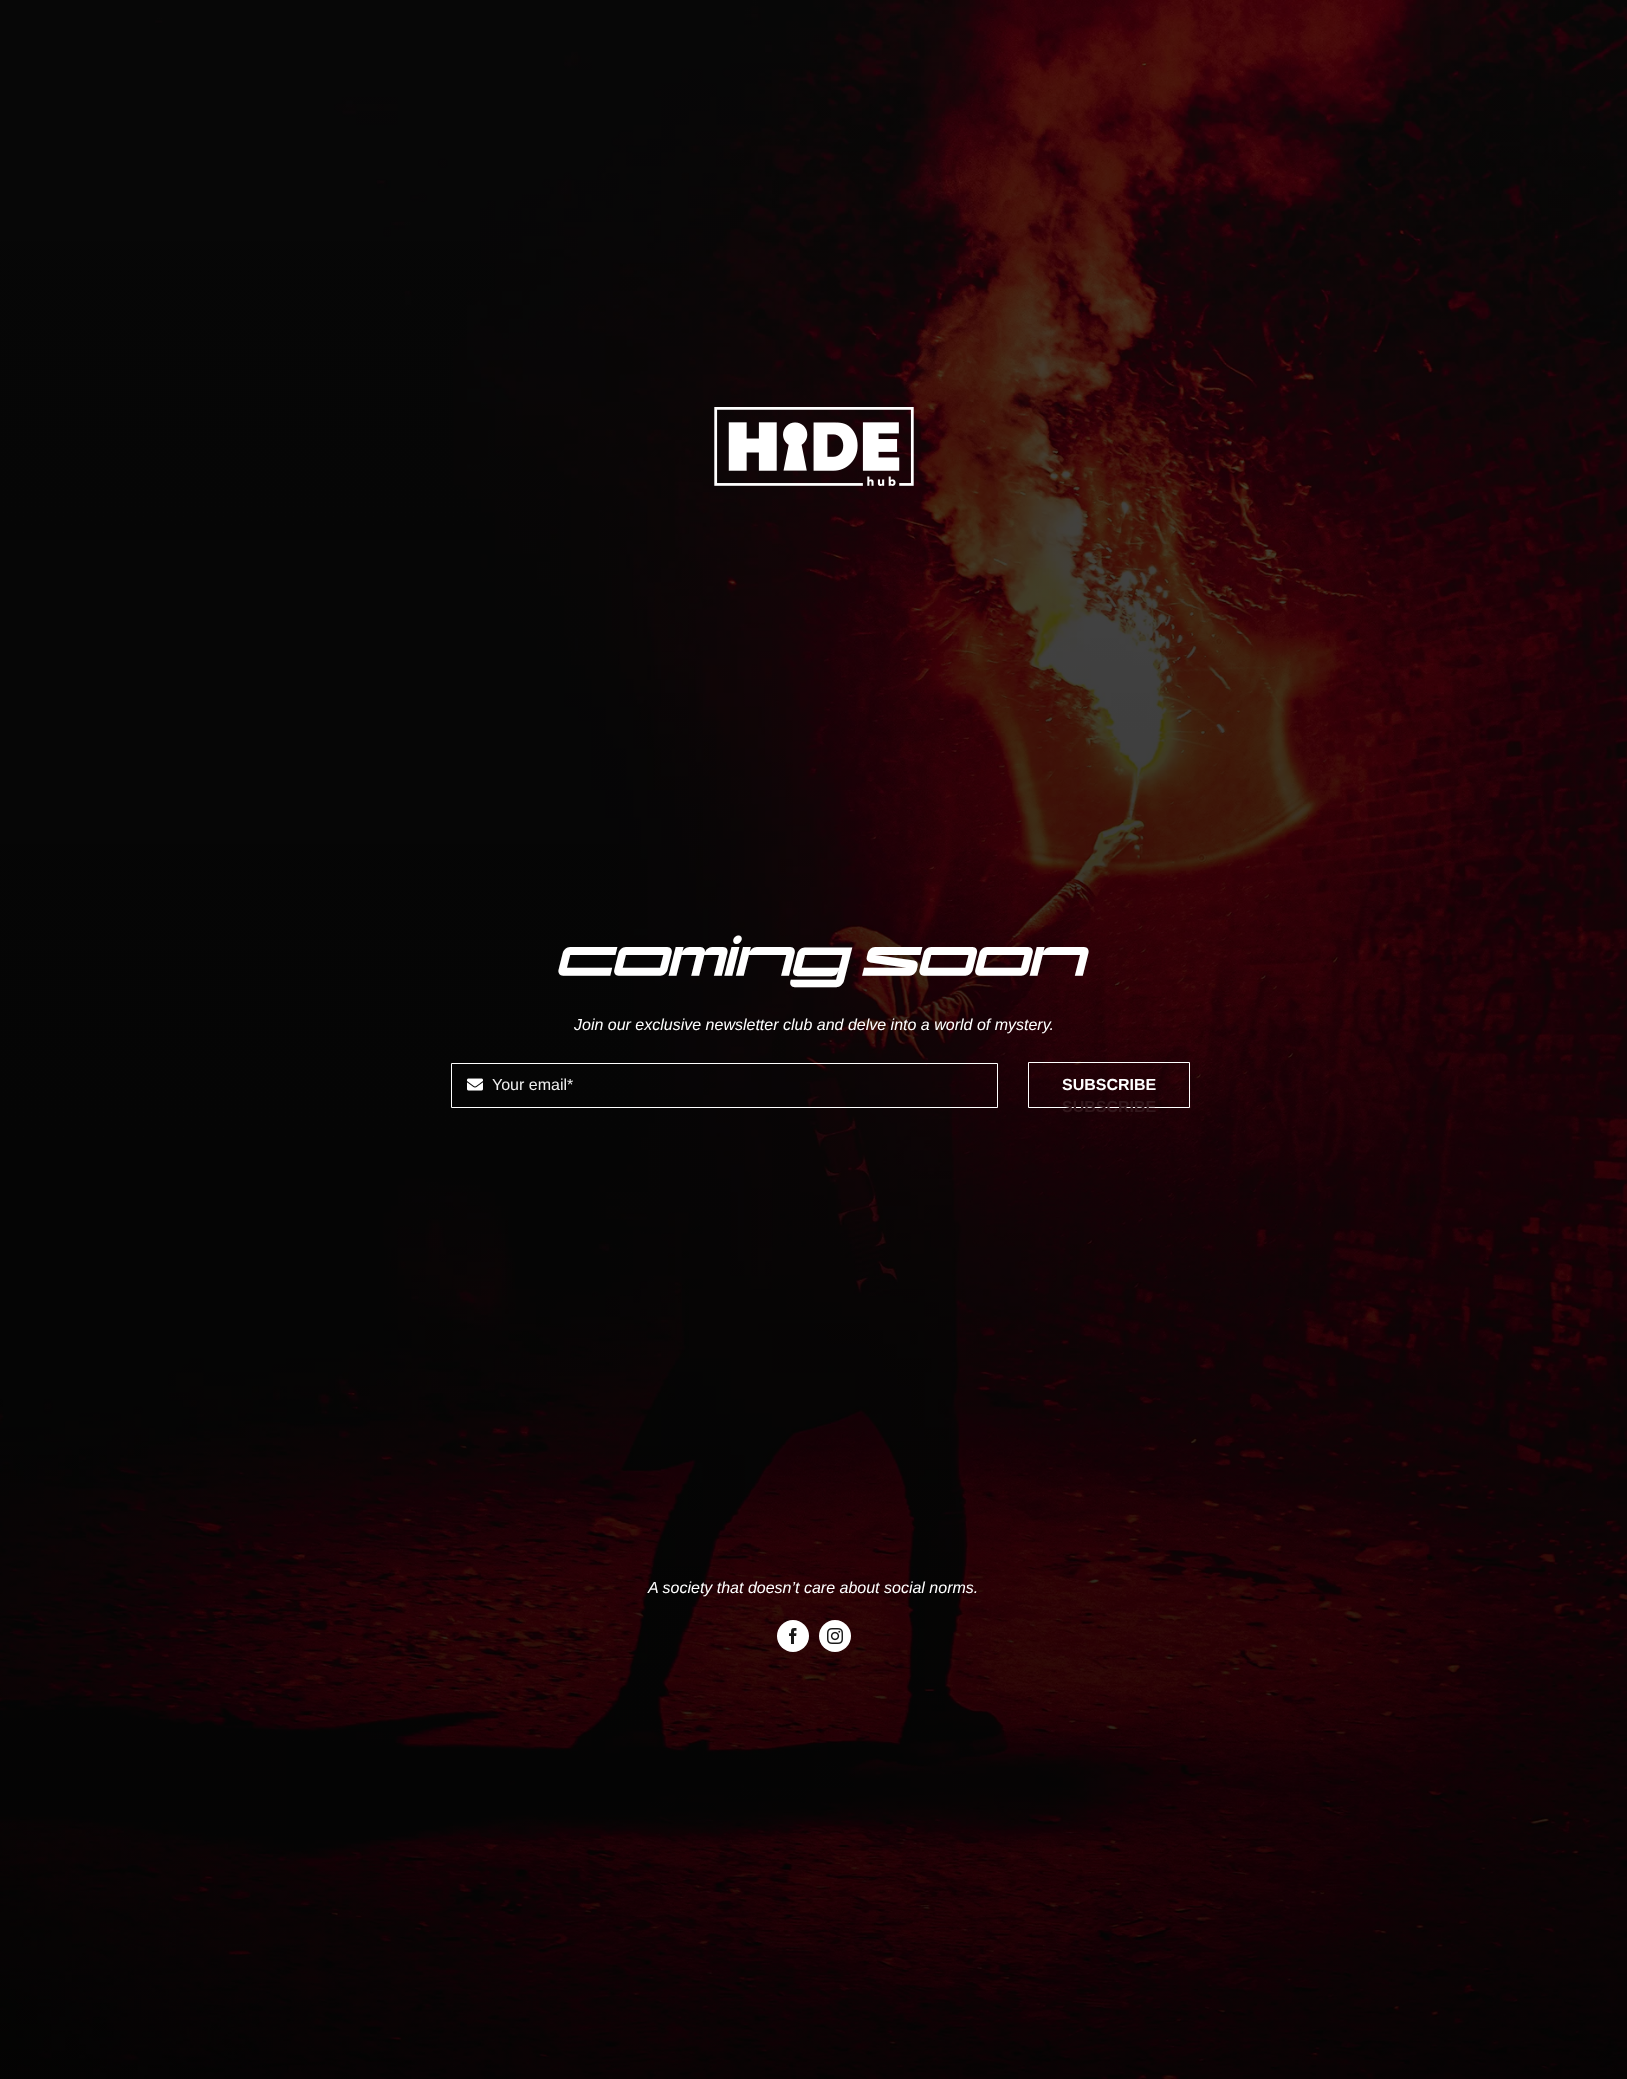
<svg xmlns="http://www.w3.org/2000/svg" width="1627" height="2079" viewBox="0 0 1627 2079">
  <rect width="100%" height="100%" fill="#fff"/>
  <image x="0" y="0" width="1627" height="2079" href="img/1.png"/>
  <image x="714" y="407" width="200" height="79" href="img/2.png"/>
  <path d="M451.5 1063.5h546v44H451.5z" fill="none" stroke="#fff"/>
  <image x="467" y="1078" width="16" height="13" href="img/3.png"/>
  <path d="M1028.5 1062.5h161v45H1028.5z" fill="none" stroke="#fff"/>
  <circle cx="793" cy="1636" r="16" fill="#fff"/>
  <image x="789" y="1628" width="8" height="16" href="img/4.png"/>
  <circle cx="835" cy="1636" r="16" fill="#fff"/>
  <image x="827" y="1628" width="16" height="16" href="img/5.png"/>
  <text x="557" y="976" font-family="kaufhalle" font-size="54" font-style="italic" fill="#fff">coming soon</text>
  <text x="574" y="1030" font-family="Liberation Sans" font-size="16" font-style="italic" fill="#fff">Join our exclusive newsletter club and delve into a world of mystery.</text>
  <text x="492" y="1090" font-family="Liberation Sans" font-size="16" fill="#efefef">Your email*</text>
  <text x="1062" y="1090" font-family="Liberation Sans" font-size="16" font-weight="bold" fill="#fff">SUBSCRIBE</text>
  <text x="1062" y="1112" font-family="Liberation Sans" font-size="16" font-weight="bold" fill="#32171c">SUBSCRIBE</text>
  <text x="648" y="1593" font-family="Liberation Sans" font-size="16" font-style="italic" fill="#fff">A society that doesn’t care about social norms.</text>
</svg>
